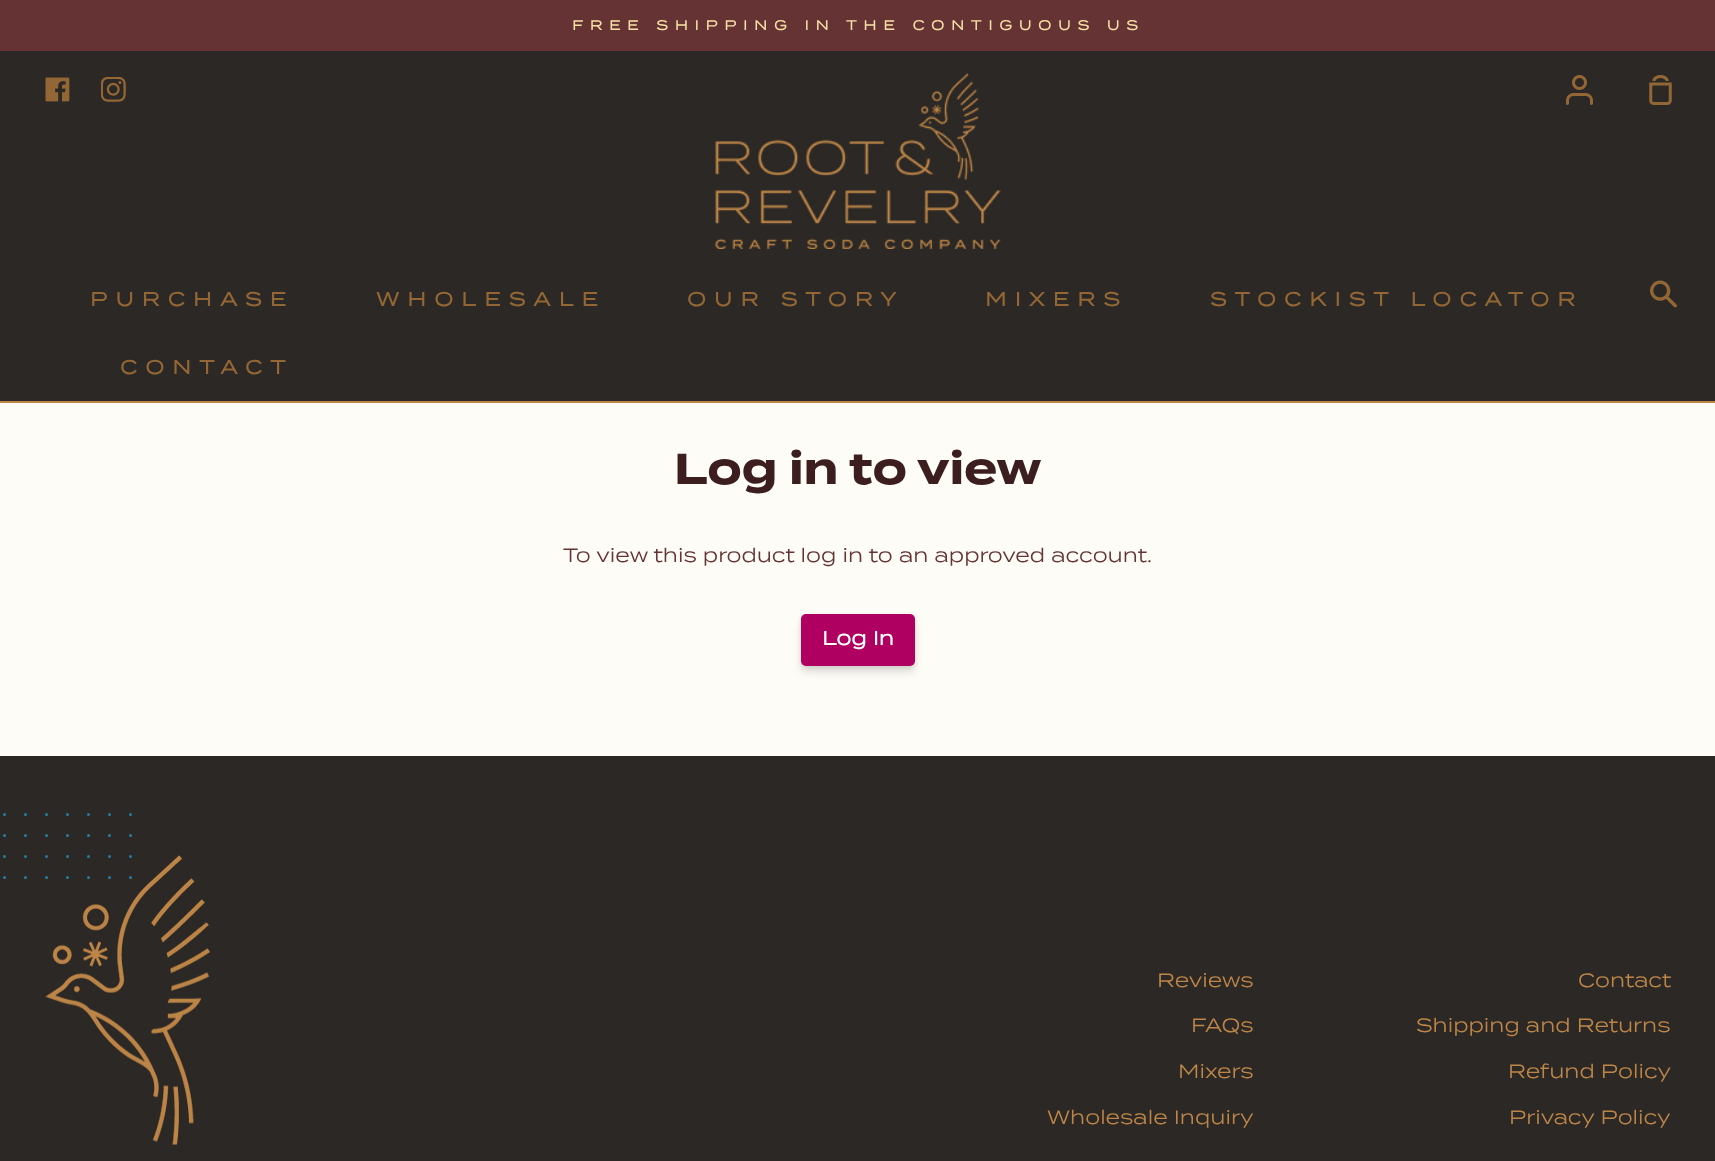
<svg xmlns="http://www.w3.org/2000/svg" width="1715" height="1161" viewBox="0 0 1715 1161">
  <rect width="100%" height="100%" fill="#fefcf6"/>
  <path d="M0 0h1715v51H0z" fill="#653334"/>
  <path d="M0 51h1715v350H0z" fill="#2b2825"/>
  <path d="M0 401h1715v2H0z" fill="#bd8648"/>
  <image x="45" y="77" width="25" height="25" href="img/1.png"/>
  <image x="101" y="77" width="25" height="25" href="img/2.png"/>
  <image x="715" y="73" width="286" height="176" href="img/3.png"/>
  <image x="1566" y="75" width="27" height="30" href="img/4.png"/>
  <image x="1649" y="75" width="23" height="30" href="img/5.png"/>
  <image x="1650" y="280" width="27" height="28" href="img/6.png"/>
  <rect x="801" y="615" width="114" height="53" rx="5" fill="#00000014" filter="blur(2px)"/>
  <rect x="801" y="620" width="114" height="52" rx="5" fill="#0000001f" filter="blur(4.5px)"/>
  <rect x="801" y="614" width="114" height="52" rx="5" fill="#af0061"/>
  <path d="M0 756h1715v405H0z" fill="#2b2825"/>
  <circle cx="4.5" cy="814.5" r="1.5" fill="#267da1"/>
  <circle cx="25.5" cy="814.5" r="1.5" fill="#267da1"/>
  <circle cx="46.5" cy="814.5" r="1.5" fill="#267da1"/>
  <circle cx="67.5" cy="814.5" r="1.5" fill="#267da1"/>
  <circle cx="88.5" cy="814.5" r="1.5" fill="#267da1"/>
  <circle cx="109.5" cy="814.5" r="1.5" fill="#267da1"/>
  <circle cx="130.5" cy="814.5" r="1.5" fill="#267da1"/>
  <circle cx="4.5" cy="835.5" r="1.5" fill="#267da1"/>
  <circle cx="25.5" cy="835.5" r="1.5" fill="#267da1"/>
  <circle cx="46.5" cy="835.5" r="1.5" fill="#267da1"/>
  <circle cx="67.5" cy="835.5" r="1.5" fill="#267da1"/>
  <circle cx="88.5" cy="835.5" r="1.5" fill="#267da1"/>
  <circle cx="109.5" cy="835.5" r="1.5" fill="#267da1"/>
  <circle cx="130.5" cy="835.5" r="1.5" fill="#267da1"/>
  <circle cx="4.5" cy="856.5" r="1.5" fill="#267da1"/>
  <circle cx="25.5" cy="856.5" r="1.5" fill="#267da1"/>
  <image x="45" y="855" width="165" height="290" href="img/7.png"/>
  <circle cx="46.5" cy="856.5" r="1.5" fill="#267da1"/>
  <circle cx="67.5" cy="856.5" r="1.5" fill="#267da1"/>
  <circle cx="88.5" cy="856.5" r="1.5" fill="#267da1"/>
  <circle cx="109.5" cy="856.5" r="1.5" fill="#267da1"/>
  <circle cx="130.5" cy="856.5" r="1.5" fill="#267da1"/>
  <circle cx="4.5" cy="877.5" r="1.5" fill="#267da1"/>
  <circle cx="25.5" cy="877.5" r="1.5" fill="#267da1"/>
  <circle cx="46.5" cy="877.5" r="1.5" fill="#267da1"/>
  <circle cx="67.5" cy="877.5" r="1.5" fill="#267da1"/>
  <circle cx="88.5" cy="877.5" r="1.5" fill="#267da1"/>
  <circle cx="109.5" cy="877.5" r="1.5" fill="#267da1"/>
  <circle cx="130.5" cy="877.5" r="1.5" fill="#267da1"/>
  <text x="572" y="30" font-family="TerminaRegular" font-size="13.45" font-weight="bold" letter-spacing="6.75" fill="#f6dfa4">FREE SHIPPING IN THE CONTIGUOUS US</text>
  <g font-family="TerminaRegular" font-size="19.2" font-weight="bold" letter-spacing="8.25" fill="#936735">
    <text x="90" y="306">PURCHASE</text>
    <text x="376" y="306">WHOLESALE</text>
    <text x="687" y="306">OUR STORY</text>
    <text x="985" y="306">MIXERS</text>
    <text x="1210" y="306">STOCKIST LOCATOR</text>
    <text x="120" y="374">CONTACT</text>
  </g>
  <text x="674" y="484" font-family="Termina" font-size="43.25" font-weight="bold" fill="#3c1e1f">Log in to view</text>
  <text x="563" y="562" font-family="TerminaRegular" font-size="19.2" fill="#653334">To view this product log in to an approved account.</text>
  <text x="822" y="645" font-family="TerminaRegular" font-size="19.2" font-weight="bold" fill="#fff">Log In</text>
  <g font-family="TerminaRegular" font-size="19.2" fill="#bd8648">
    <text x="1157" y="987">Reviews</text>
    <text x="1191" y="1032">FAQs</text>
    <text x="1178" y="1078">Mixers</text>
    <text x="1047" y="1124">Wholesale Inquiry</text>
    <text x="1578" y="987">Contact</text>
    <text x="1416" y="1032">Shipping and Returns</text>
    <text x="1508" y="1078">Refund Policy</text>
    <text x="1509" y="1124">Privacy Policy</text>
  </g>
</svg>
